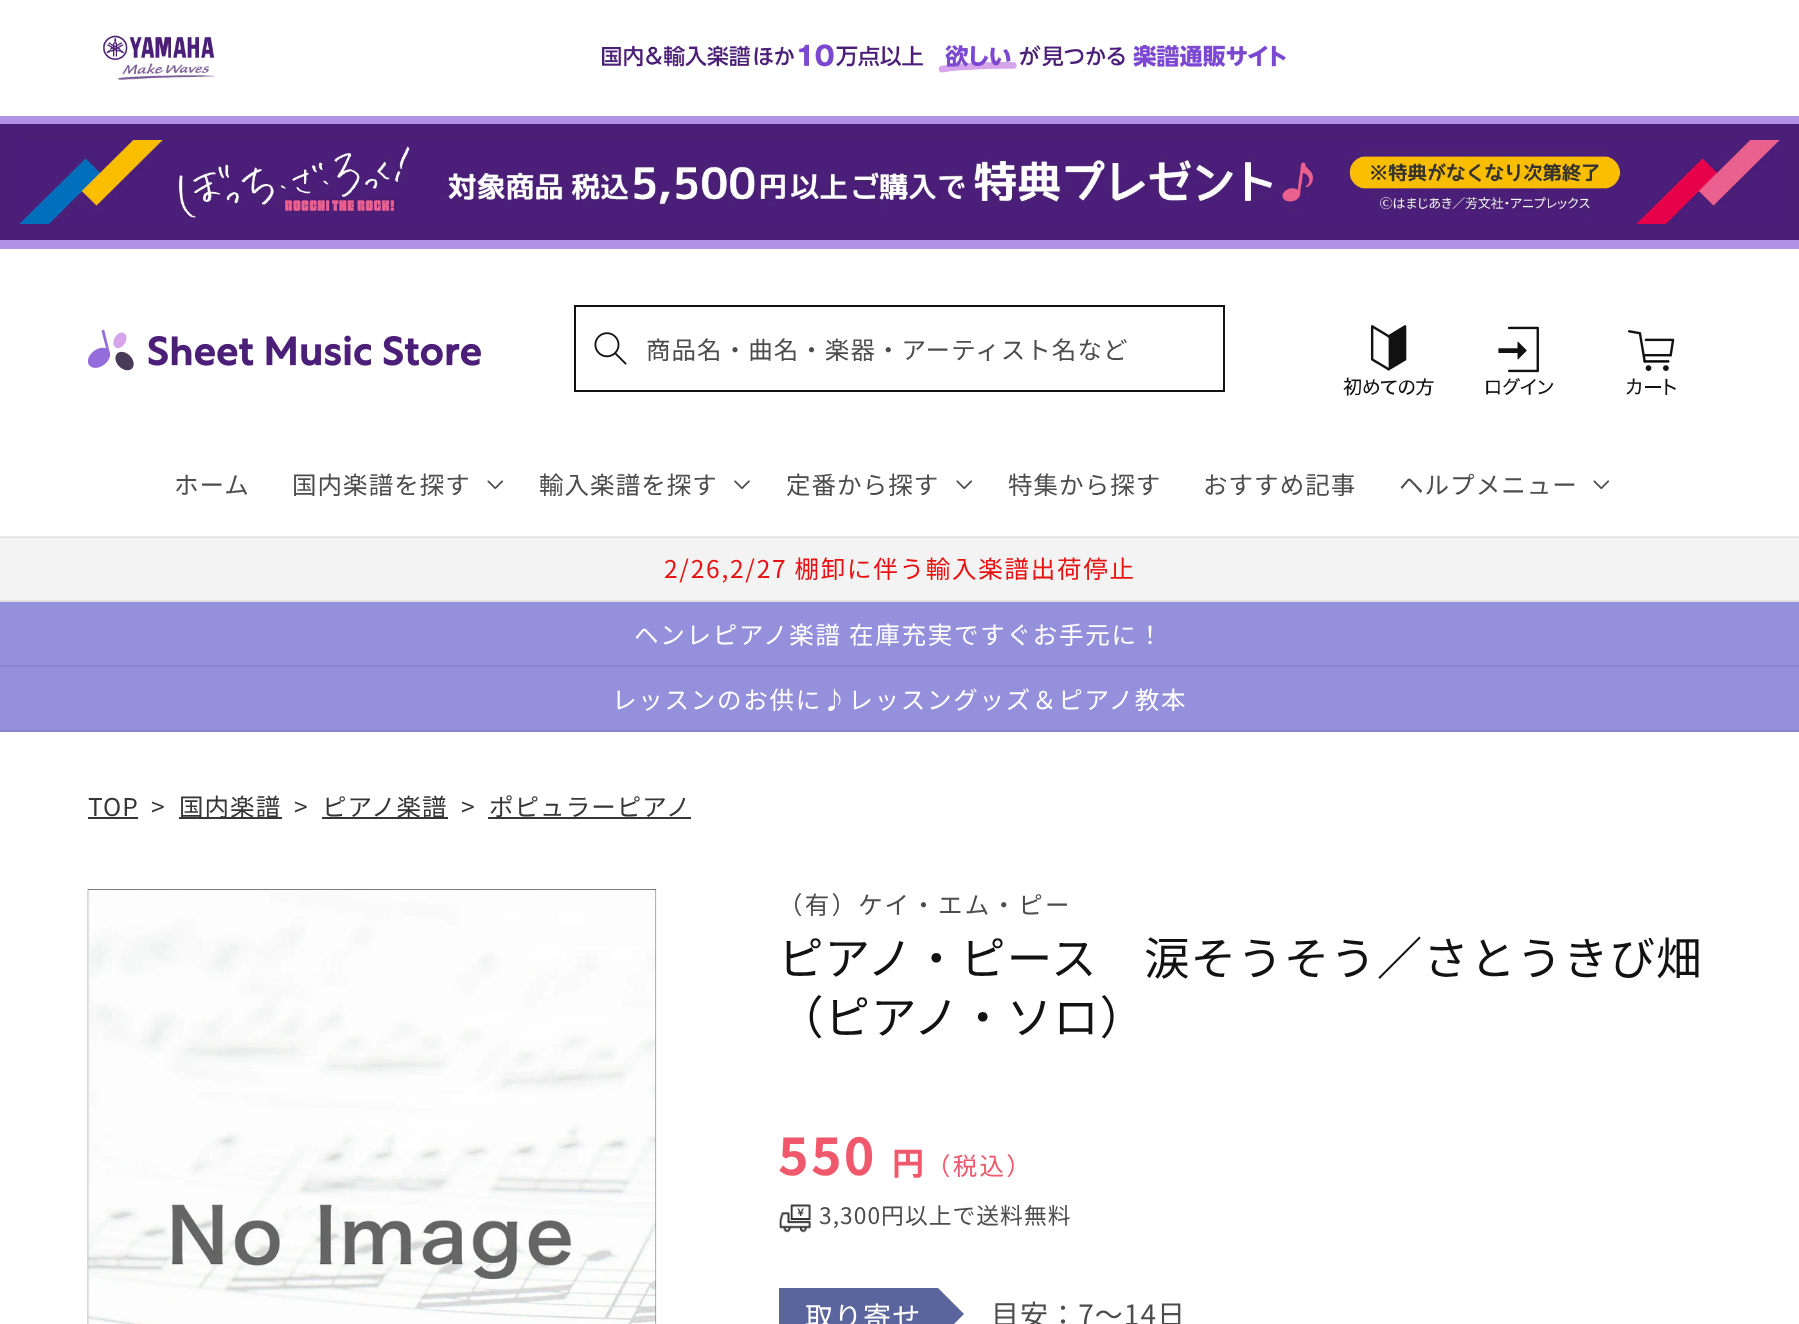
<svg xmlns="http://www.w3.org/2000/svg" width="1799" height="1324" viewBox="0 0 1799 1324">
  <rect width="100%" height="100%" fill="#fff"/>
  <path d="M0 536h1799v1H0z" fill="#ececec"/>
  <path d="M0 116h1799v8H0z" fill="#b091e4"/>
  <image x="103" y="35" width="1183" height="45" href="img/1.png"/>
  <path d="M0 124h1799v116H0z" fill="#4b1e78"/>
  <path d="M0 240h1799v9H0z" fill="#b091e4"/>
  <image x="18" y="140" width="1764" height="84" href="img/2.png"/>
  <image x="88" y="329" width="393" height="42" href="img/3.png"/>
  <path d="M575 306h649v85H575z" fill="none" stroke="#121212" stroke-width="2"/>
  <image x="594" y="332" width="33" height="33" href="img/4.png"/>
  <image x="1343" y="325" width="91" height="71" href="img/5.png"/>
  <image x="1486" y="326" width="68" height="69" href="img/6.png"/>
  <image x="1626" y="330" width="50" height="65" href="img/7.png"/>
  <image x="487" y="480" width="17" height="10" href="img/8.png"/>
  <image x="734" y="480" width="16" height="9" href="img/9.png"/>
  <image x="956" y="480" width="17" height="10" href="img/8.png"/>
  <image x="1593" y="480" width="17" height="10" href="img/8.png"/>
  <path d="M0 538h1799v62H0z" fill="#f3f3f3"/>
  <path d="M0 537h1799v1H0z" fill="#e1e1e1"/>
  <path d="M0 600h1799v2H0z" fill="#e1e1e1"/>
  <path d="M0 602h1799v63H0z" fill="#9590db"/>
  <path d="M0 665h1799v2H0z" fill="#8b86cb"/>
  <path d="M0 667h1799v63H0z" fill="#9590db"/>
  <path d="M0 730h1799v2H0z" fill="#8b86cb"/>
  <path d="M88 817h50v2H88z" fill="#363636"/>
  <path d="M179 817h103v2H179z" fill="#363636"/>
  <path d="M322 817h126v2H322z" fill="#363636"/>
  <path d="M488 817h203v2H488z" fill="#363636"/>
  <image x="87" y="889" width="570" height="435" href="img/10.png"/>
  <image x="779" y="1204" width="33" height="29" href="img/11.png"/>
  <path d="M779 1288h159v36H779z" fill="#5a659e"/>
  <path d="M938 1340V1288L964 1314Z" fill="#5a659e"/>
  <g font-family="Noto Sans JP" font-size="24.5" letter-spacing="1.05" fill="#4d4d4d">
    <text x="646" y="359">商品名・曲名・楽器・アーティスト名など</text>
    <text x="174" y="494">ホーム</text>
    <text x="292" y="494">国内楽譜を探す</text>
    <text x="539" y="494">輸入楽譜を探す</text>
    <text x="786" y="494">定番から探す</text>
    <text x="1008" y="494">特集から探す</text>
    <text x="1203" y="494">おすすめ記事</text>
    <text x="1399" y="494">ヘルプメニュー</text>
  </g>
  <text x="664" y="578" font-family="Noto Sans JP" font-size="24.5" letter-spacing="1.75" fill="#e81212">2/26,2/27 棚卸に伴う輸入楽譜出荷停止</text>
  <g font-family="Noto Sans JP" font-size="24.5" letter-spacing="1.75" fill="#fff">
    <text x="634" y="644">ヘンレピアノ楽譜 在庫充実ですぐお手元に！</text>
    <text x="612" y="709">レッスンのお供に♪レッスングッズ＆ピアノ教本</text>
  </g>
  <g font-family="Noto Sans JP" font-size="24.5" letter-spacing="1.05" fill="#363636">
    <text x="88" y="816">TOP</text>
    <text x="151" y="816">&gt;</text>
    <text x="179" y="816">国内楽譜</text>
    <text x="294" y="816">&gt;</text>
    <text x="322" y="816">ピアノ楽譜</text>
    <text x="461" y="816">&gt;</text>
    <text x="489" y="816">ポピュラーピアノ</text>
  </g>
  <text x="778" y="914" font-family="Noto Sans JP" font-size="24.5" letter-spacing="2.25" fill="#4d4d4d">（有）ケイ・エム・ピー</text>
  <g font-family="Noto Sans JP" font-size="45.5" letter-spacing="1.05" fill="#121212">
    <text x="778" y="975">ピアノ・ピース　涙そうそう／さとうきび畑</text>
    <text x="778" y="1034">（ピアノ・ソロ）</text>
  </g>
  <text x="778" y="1175" font-family="Noto Sans JP" font-size="52" font-weight="bold" letter-spacing="2.25" fill="#ef596b">550</text>
  <text x="892" y="1175" font-family="Noto Sans JP" font-size="32" font-weight="bold" letter-spacing="2.25" fill="#ef596b">円</text>
  <text x="926" y="1175" font-family="Noto Sans JP" font-size="24.5" letter-spacing="2.25" fill="#ef596b">（税込）</text>
  <text x="819" y="1224" font-family="Noto Sans JP" font-size="22.75" letter-spacing="1.05" fill="#4d4d4d">3,300円以上で送料無料</text>
  <text x="805" y="1327" font-family="Noto Sans JP" font-size="28" letter-spacing="1.05" fill="#fff">取り寄せ</text>
  <text x="991" y="1325" font-family="Noto Sans JP" font-size="28" letter-spacing="1.05" fill="#4d4d4d">目安：7～14日</text>
</svg>
